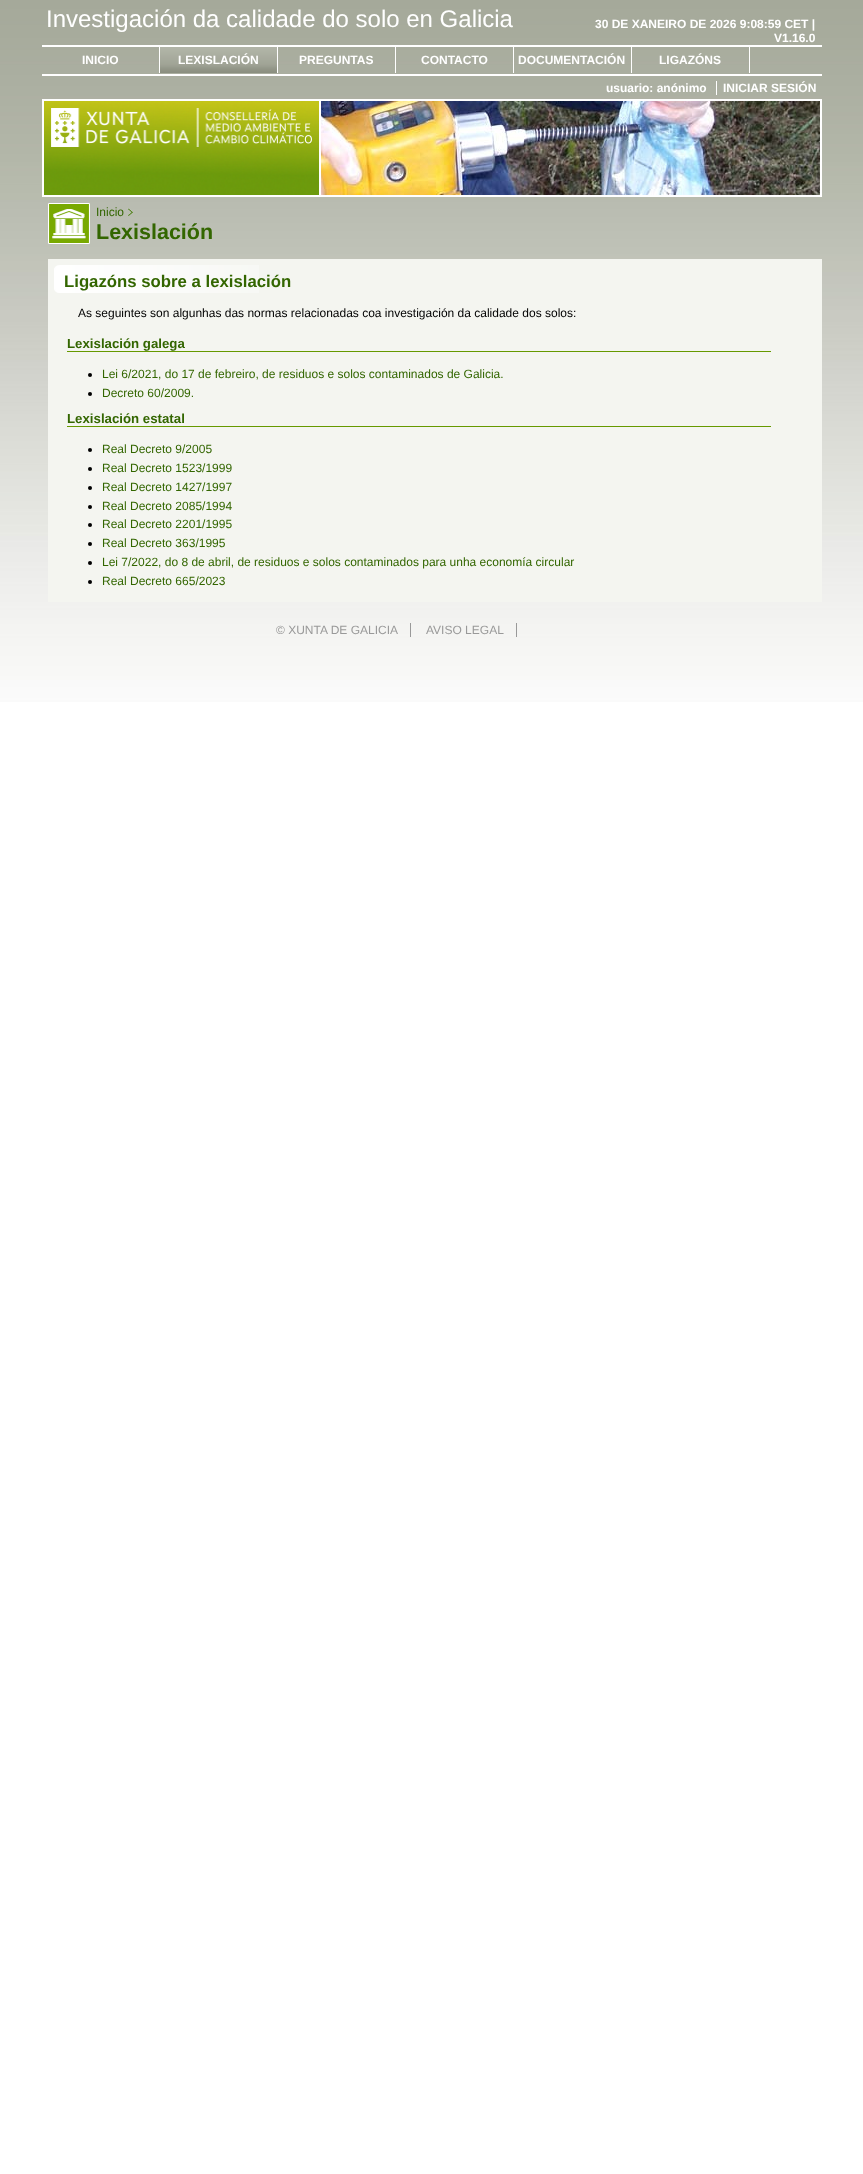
<svg xmlns="http://www.w3.org/2000/svg" width="863" height="2174" viewBox="0 0 863 2174">
  <rect width="100%" height="100%" fill="#fff"/>
  <image x="0" y="0" width="863" height="702" href="img/1.png"/>
  <path d="M42 45h780v2H42z" fill="#fff"/>
  <path d="M42 74h780v2H42z" fill="#fff"/>
  <path d="M159 47h1v26H159z" fill="#fff"/>
  <image x="160" y="47" width="117" height="26" href="img/2.png"/>
  <path d="M277 47h1v26H277z" fill="#fff"/>
  <path d="M395 47h1v26H395z" fill="#fff"/>
  <path d="M513 47h1v26H513z" fill="#fff"/>
  <path d="M631 47h1v26H631z" fill="#fff"/>
  <path d="M749 47h1v26H749z" fill="#fff"/>
  <path d="M716 81h1v14H716z" fill="#fff"/>
  <image x="321" y="101" width="499" height="94" href="img/3.png"/>
  <path d="M43 100h778v96H43z" fill="none" stroke="#fff" stroke-width="2"/>
  <image x="44" y="101" width="275" height="94" href="img/4.png"/>
  <path d="M319 101h2v94H319z" fill="#fff"/>
  <image x="48" y="203" width="42" height="41" href="img/5.png"/>
  <image x="127" y="208" width="6" height="8" href="img/6.png"/>
  <path d="M48 259h774v343H48z" fill="#f4f5f0"/>
  <image x="54" y="265" width="205" height="28" href="img/7.png"/>
  <path d="M67 351h704v1H67z" fill="#690"/>
  <circle cx="90" cy="375" r="2" fill="#000"/>
  <circle cx="90" cy="394" r="2" fill="#000"/>
  <path d="M67 426h704v1H67z" fill="#690"/>
  <circle cx="90" cy="450" r="2" fill="#000"/>
  <circle cx="90" cy="469" r="2" fill="#000"/>
  <circle cx="90" cy="488" r="2" fill="#000"/>
  <circle cx="90" cy="507" r="2" fill="#000"/>
  <circle cx="90" cy="525" r="2" fill="#000"/>
  <circle cx="90" cy="544" r="2" fill="#000"/>
  <circle cx="90" cy="563" r="2" fill="#000"/>
  <circle cx="90" cy="582" r="2" fill="#000"/>
  <path d="M410 623h1v14H410z" fill="#999"/>
  <path d="M516 623h1v14H516z" fill="#999"/>
  <text x="46" y="27" font-family="Liberation Sans" font-size="24" fill="#fff">Investigación da calidade do solo en Galicia</text>
  <g font-family="Liberation Sans" font-size="12" font-weight="bold" fill="#fff">
    <text x="595" y="28">30 DE XANEIRO DE 2026 9:08:59 CET |</text>
    <text x="774" y="42">V1.16.0</text>
    <text x="82" y="64">INICIO</text>
    <text x="178" y="64">LEXISLACIÓN</text>
    <text x="299" y="64">PREGUNTAS</text>
    <text x="421" y="64">CONTACTO</text>
    <text x="518" y="64">DOCUMENTACIÓN</text>
    <text x="659" y="64">LIGAZÓNS</text>
    <text x="606" y="92">usuario: anónimo</text>
    <text x="723" y="92">INICIAR SESIÓN</text>
  </g>
  <text x="96" y="216" font-family="Liberation Sans" font-size="12" fill="#360">Inicio</text>
  <text x="96" y="239" font-family="Liberation Sans" font-size="21.5" font-weight="bold" fill="#360">Lexislación</text>
  <text x="64" y="287" font-family="Liberation Sans" font-size="16.75" font-weight="bold" fill="#360">Ligazóns sobre a lexislación</text>
  <text x="78" y="317" font-family="Liberation Sans" font-size="12" fill="#000">As seguintes son algunhas das normas relacionadas coa investigación da calidade dos solos:</text>
  <text x="67" y="348" font-family="Liberation Sans" font-size="13.25" font-weight="bold" fill="#360">Lexislación galega</text>
  <g font-family="Liberation Sans" font-size="12" fill="#360">
    <text x="102" y="378">Lei 6/2021, do 17 de febreiro, de residuos e solos contaminados de Galicia.</text>
    <text x="102" y="397">Decreto 60/2009.</text>
  </g>
  <text x="67" y="423" font-family="Liberation Sans" font-size="13.25" font-weight="bold" fill="#360">Lexislación estatal</text>
  <g font-family="Liberation Sans" font-size="12" fill="#360">
    <text x="102" y="453">Real Decreto 9/2005</text>
    <text x="102" y="472">Real Decreto 1523/1999</text>
    <text x="102" y="491">Real Decreto 1427/1997</text>
    <text x="102" y="510">Real Decreto 2085/1994</text>
    <text x="102" y="528">Real Decreto 2201/1995</text>
    <text x="102" y="547">Real Decreto 363/1995</text>
    <text x="102" y="566">Lei 7/2022, do 8 de abril, de residuos e solos contaminados para unha economía circular</text>
    <text x="102" y="585">Real Decreto 665/2023</text>
  </g>
  <g font-family="Liberation Sans" font-size="12" fill="#999">
    <text x="276" y="634">© XUNTA DE GALICIA</text>
    <text x="426" y="634">AVISO LEGAL</text>
  </g>
</svg>
